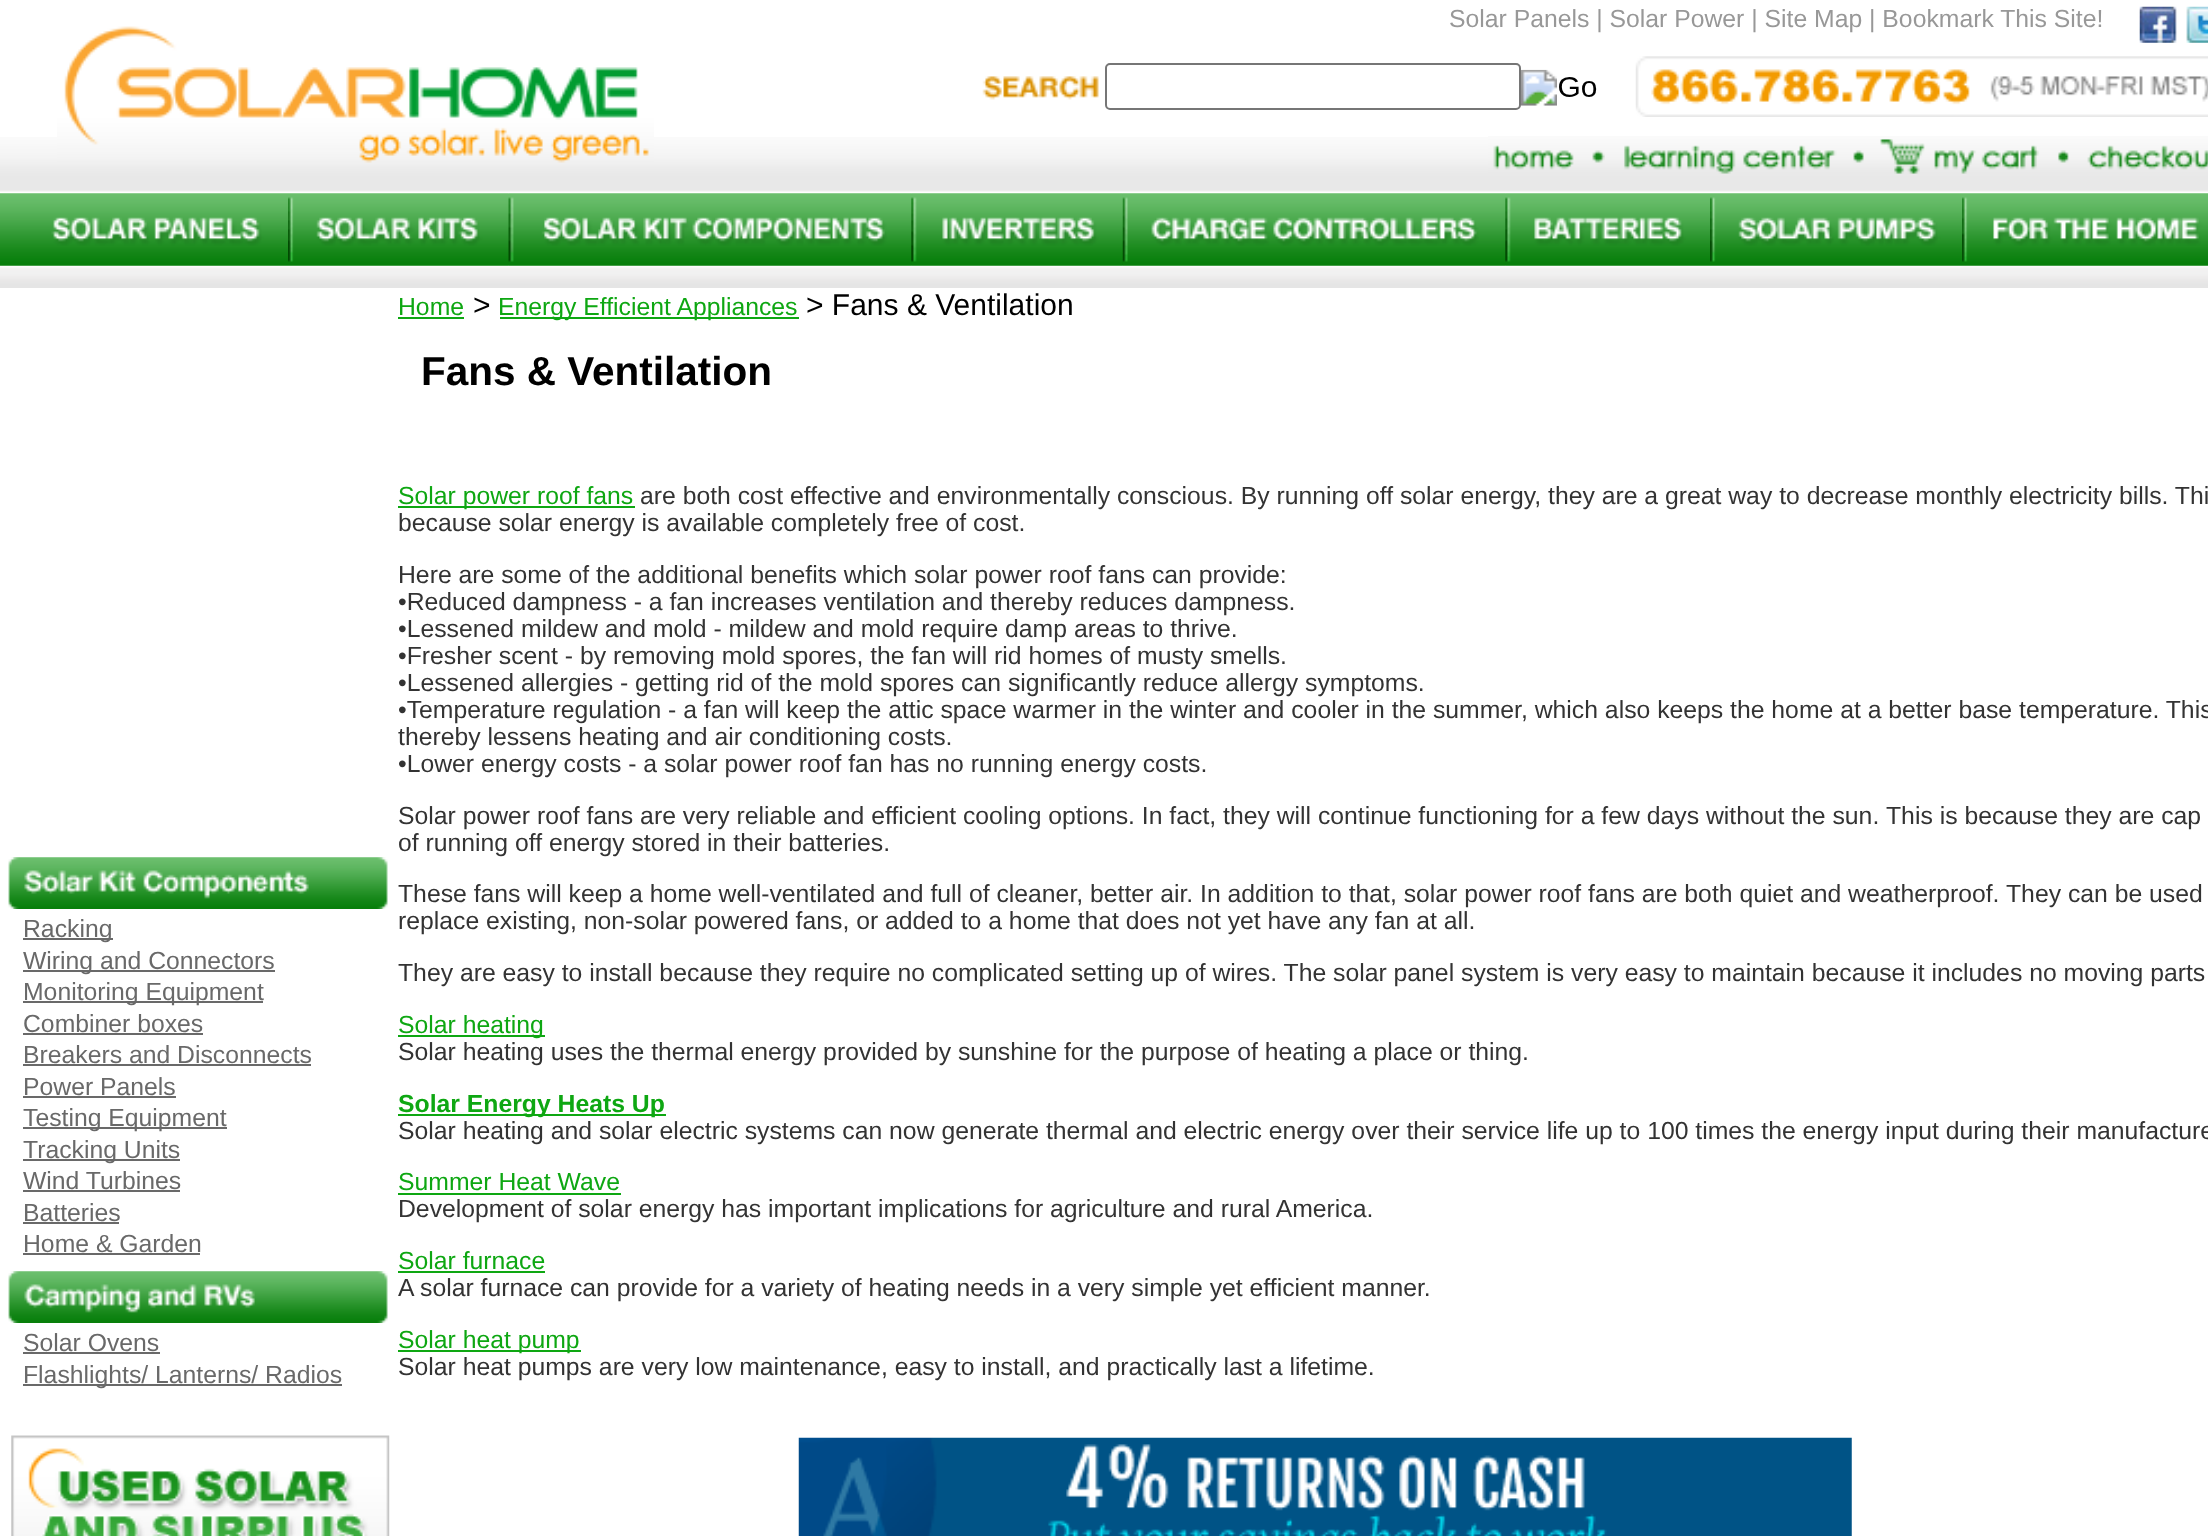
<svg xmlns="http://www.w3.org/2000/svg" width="2208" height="1536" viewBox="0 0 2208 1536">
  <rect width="100%" height="100%" fill="#fff"/>
  <image x="0" y="137" width="2208" height="55" href="img/1.png"/>
  <image x="2139" y="6" width="69" height="37" href="img/2.png"/>
  <image x="57" y="26" width="597" height="137" href="img/3.png"/>
  <image x="982" y="76" width="117" height="24" href="img/4.png"/>
  <rect x="1106" y="64" width="414" height="45" rx="4" fill="none" stroke="#767676" stroke-width="2"/>
  <image x="1521" y="69" width="76" height="37" href="img/5.png"/>
  <image x="1635" y="56" width="573" height="61" href="img/6.png"/>
  <image x="1488" y="136" width="720" height="38" href="img/7.png"/>
  <image x="0" y="193" width="2208" height="73" href="img/8.png"/>
  <image x="0" y="193" width="288" height="73" href="img/9.png"/>
  <image x="288" y="193" width="221" height="73" href="img/10.png"/>
  <image x="508" y="193" width="404" height="73" href="img/11.png"/>
  <image x="911" y="193" width="212" height="73" href="img/12.png"/>
  <image x="1122" y="193" width="384" height="73" href="img/13.png"/>
  <image x="1505" y="193" width="205" height="73" href="img/14.png"/>
  <image x="1710" y="193" width="252" height="73" href="img/15.png"/>
  <image x="1962" y="193" width="246" height="73" href="img/16.png"/>
  <image x="0" y="266" width="2208" height="22" href="img/17.png"/>
  <image x="8" y="857" width="380" height="52" href="img/18.png"/>
  <path d="M23 938h90v2H23z" fill="#696969"/>
  <path d="M23 970h252v2H23z" fill="#696969"/>
  <path d="M23 1001h240v2H23z" fill="#696969"/>
  <path d="M23 1033h180v2H23z" fill="#696969"/>
  <path d="M23 1064h288v2H23z" fill="#696969"/>
  <path d="M23 1096h153v2H23z" fill="#696969"/>
  <path d="M23 1127h204v2H23z" fill="#696969"/>
  <path d="M23 1159h157v2H23z" fill="#696969"/>
  <path d="M23 1190h157v2H23z" fill="#696969"/>
  <path d="M23 1222h96v2H23z" fill="#696969"/>
  <path d="M23 1253h177v2H23z" fill="#696969"/>
  <image x="8" y="1271" width="380" height="52" href="img/19.png"/>
  <path d="M23 1352h137v2H23z" fill="#696969"/>
  <path d="M23 1384h319v2H23z" fill="#696969"/>
  <image x="11" y="1435" width="379" height="101" href="img/20.png"/>
  <path d="M398 317h66v2H398z" fill="#0ea712"/>
  <path d="M500 317h299v2H500z" fill="#0ea712"/>
  <path d="M398 506h237v2H398z" fill="#0ea712"/>
  <path d="M398 1035h147v2H398z" fill="#0ea712"/>
  <path d="M398 1114h268v2H398z" fill="#0ea712"/>
  <path d="M398 1193h223v2H398z" fill="#0ea712"/>
  <path d="M398 1271h147v2H398z" fill="#0ea712"/>
  <path d="M398 1350h183v2H398z" fill="#0ea712"/>
  <image x="798" y="1437" width="1054" height="99" href="img/21.png"/>
  <text x="1449" y="27" font-family="Liberation Sans" font-size="24.75" fill="#989898">Solar Panels | Solar Power | Site Map | Bookmark This Site!</text>
  <g font-family="Liberation Sans" font-size="24.75" fill="#696969">
    <text x="23" y="937">Racking</text>
    <text x="23" y="969">Wiring and Connectors</text>
    <text x="23" y="1000">Monitoring Equipment</text>
    <text x="23" y="1032">Combiner boxes</text>
    <text x="23" y="1063">Breakers and Disconnects</text>
    <text x="23" y="1095">Power Panels</text>
    <text x="23" y="1126">Testing Equipment</text>
    <text x="23" y="1158">Tracking Units</text>
    <text x="23" y="1189">Wind Turbines</text>
    <text x="23" y="1221">Batteries</text>
    <text x="23" y="1252">Home &amp; Garden</text>
    <text x="23" y="1351">Solar Ovens</text>
    <text x="23" y="1383">Flashlights/ Lanterns/ Radios</text>
  </g>
  <text x="398" y="315" font-family="Liberation Sans" font-size="24.75" fill="#0ea712">Home</text>
  <text x="473" y="315" font-family="Liberation Sans" font-size="30" fill="#000">&gt;</text>
  <text x="498" y="315" font-family="Liberation Sans" font-size="24.75" fill="#0ea712">Energy Efficient Appliances</text>
  <text x="806" y="315" font-family="Liberation Sans" font-size="30" fill="#000">&gt; Fans &amp; Ventilation</text>
  <text x="421" y="385" font-family="Liberation Sans" font-size="40.5" font-weight="bold" fill="#000">Fans &amp; Ventilation</text>
  <text x="398" y="504" font-family="Liberation Sans" font-size="24.75" fill="#0ea712">Solar power roof fans</text>
  <g font-family="Liberation Sans" font-size="24.75" fill="#333">
    <text x="640" y="504">are both cost effective and environmentally conscious. By running off solar energy, they are a great way to decrease monthly electricity bills. Thi</text>
    <text x="398" y="531">because solar energy is available completely free of cost.</text>
    <text x="398" y="583">Here are some of the additional benefits which solar power roof fans can provide:</text>
    <text x="398" y="610">•Reduced dampness - a fan increases ventilation and thereby reduces dampness.</text>
    <text x="398" y="637">•Lessened mildew and mold - mildew and mold require damp areas to thrive.</text>
    <text x="398" y="664">•Fresher scent - by removing mold spores, the fan will rid homes of musty smells.</text>
    <text x="398" y="691">•Lessened allergies - getting rid of the mold spores can significantly reduce allergy symptoms.</text>
    <text x="398" y="718">•Temperature regulation - a fan will keep the attic space warmer in the winter and cooler in the summer, which also keeps the home at a better base temperature. This</text>
    <text x="398" y="745">thereby lessens heating and air conditioning costs.</text>
    <text x="398" y="772">•Lower energy costs - a solar power roof fan has no running energy costs.</text>
    <text x="398" y="824">Solar power roof fans are very reliable and efficient cooling options. In fact, they will continue functioning for a few days without the sun.</text>
    <text x="1886" y="824">This is because they are cap</text>
    <text x="398" y="851">of running off energy stored in their batteries.</text>
    <text x="398" y="902">These fans will keep a home well-ventilated and full of cleaner, better air. In addition to that, solar power roof fans are both quiet and weatherproof.</text>
    <text x="2006" y="902">They can be used</text>
    <text x="398" y="929">replace existing, non-solar powered fans, or added to a home that does not yet have any fan at all.</text>
    <text x="398" y="981">They are easy to install because they require no complicated setting up of wires. The solar panel system is very easy to maintain because it includes no moving parts</text>
  </g>
  <text x="398" y="1033" font-family="Liberation Sans" font-size="24.75" fill="#0ea712">Solar heating</text>
  <text x="398" y="1060" font-family="Liberation Sans" font-size="24.75" fill="#333">Solar heating uses the thermal energy provided by sunshine for the purpose of heating a place or thing.</text>
  <text x="398" y="1112" font-family="Liberation Sans" font-size="24.75" font-weight="bold" fill="#0ea712">Solar Energy Heats Up</text>
  <text x="398" y="1139" font-family="Liberation Sans" font-size="24.75" fill="#333">Solar heating and solar electric systems can now generate thermal and electric energy over their service life up to 100 times the energy input during their manufacture</text>
  <text x="398" y="1190" font-family="Liberation Sans" font-size="24.75" fill="#0ea712">Summer Heat Wave</text>
  <text x="398" y="1217" font-family="Liberation Sans" font-size="24.75" fill="#333">Development of solar energy has important implications for agriculture and rural America.</text>
  <text x="398" y="1269" font-family="Liberation Sans" font-size="24.75" fill="#0ea712">Solar furnace</text>
  <text x="398" y="1296" font-family="Liberation Sans" font-size="24.75" fill="#333">A solar furnace can provide for a variety of heating needs in a very simple yet efficient manner.</text>
  <text x="398" y="1348" font-family="Liberation Sans" font-size="24.75" fill="#0ea712">Solar heat pump</text>
  <text x="398" y="1375" font-family="Liberation Sans" font-size="24.75" fill="#333">Solar heat pumps are very low maintenance, easy to install, and practically last a lifetime.</text>
</svg>
